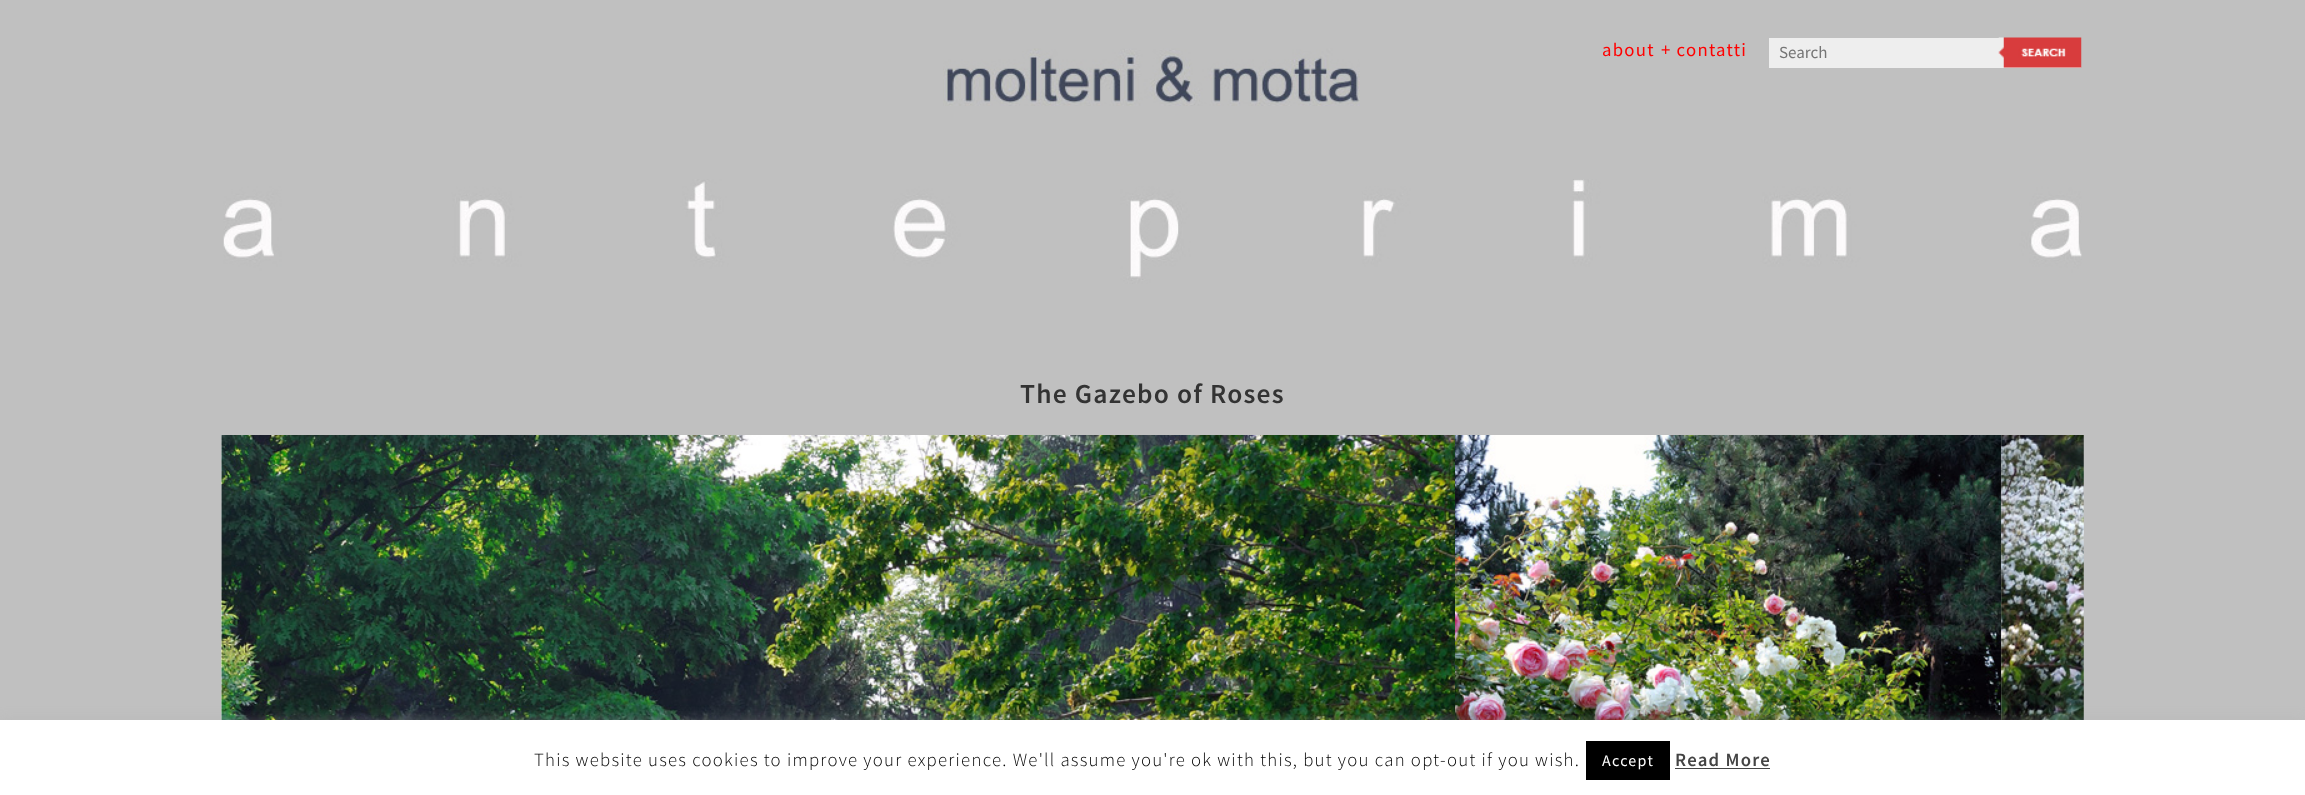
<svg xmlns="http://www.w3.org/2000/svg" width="2305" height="795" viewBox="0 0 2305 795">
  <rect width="100%" height="100%" fill="#c0c0c0"/>
  <image x="943" y="48" width="417" height="58" href="img/1.png"/>
  <path d="M1769 38h312v30H1769z" fill="#eee"/>
  <image x="1998" y="37" width="84" height="31" href="img/2.png"/>
  <image x="223" y="179" width="1859" height="105" href="img/3.png"/>
  <path d="M221 435h1v285H221z" fill="#fff"/>
  <image x="221" y="435" width="1234" height="285" href="img/4.png"/>
  <image x="1455" y="435" width="547" height="285" href="img/5.png"/>
  <image x="2001" y="435" width="83" height="285" href="img/6.png"/>
  <path d="M0 719h2305v75H0z" fill="#acabab4d" filter="blur(6px)"/>
  <path d="M0 720h2305v75H0z" fill="#fff"/>
  <path d="M1586 741h84v39H1586z" fill="#000"/>
  <path d="M1675 768h95v1H1675z" fill="#444"/>
  <g font-family="Source Sans Pro" font-size="18.75" letter-spacing="1.25" fill="#f00">
    <text x="1602" y="56">about</text>
    <text x="1661" y="56">+ contatti</text>
  </g>
  <text x="1779" y="58" font-family="Source Sans Pro" font-size="17" fill="#757575">Search</text>
  <text x="1020" y="403" font-family="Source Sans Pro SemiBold" font-size="27.5" font-weight="600" letter-spacing="1.25" fill="#333">The Gazebo of Roses</text>
  <text x="534" y="766" font-family="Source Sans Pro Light" font-size="18.75" font-weight="300" letter-spacing="1.25" fill="#000">This website uses cookies to improve your experience. We'll assume you're ok with this, but you can opt-out if you wish.</text>
  <text x="1602" y="766" font-family="Source Sans Pro" font-size="16" letter-spacing="1.25" fill="#fff">Accept</text>
  <text x="1675" y="766" font-family="Source Sans Pro SemiBold" font-size="18.75" font-weight="600" letter-spacing="1.25" fill="#444">Read More</text>
</svg>
